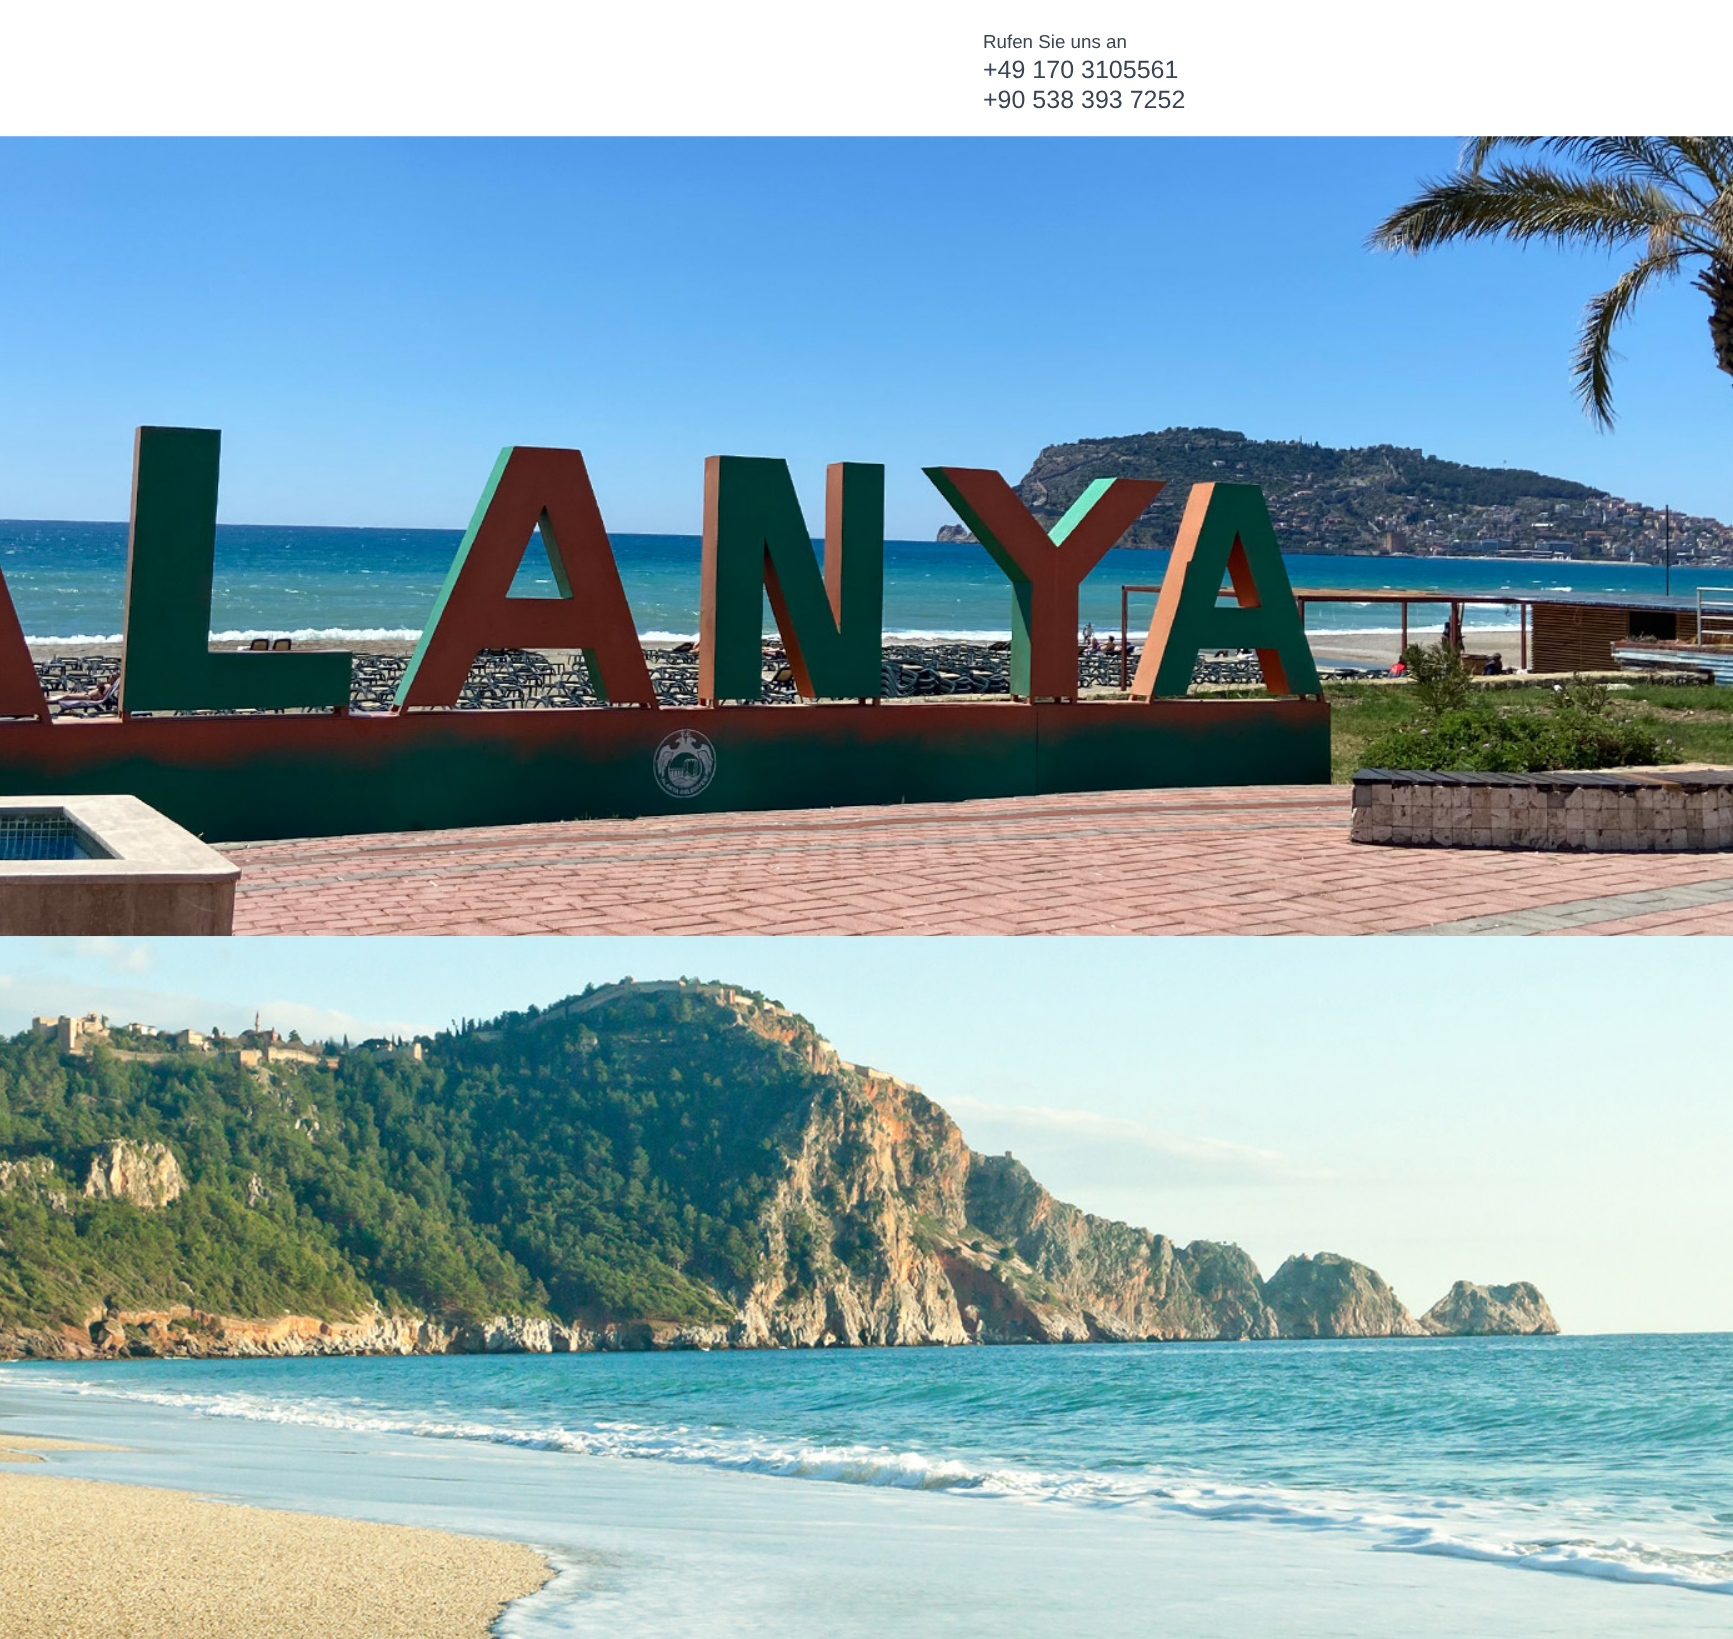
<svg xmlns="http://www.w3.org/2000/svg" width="1733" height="1639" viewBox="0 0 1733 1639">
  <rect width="100%" height="100%" fill="#fff"/>
  <image x="0" y="136" width="1733" height="801" href="img/1.png"/>
  <image x="0" y="936" width="1733" height="703" href="img/2.png"/>
  <text x="983" y="48" font-family="Liberation Sans" font-size="18.75" fill="#394553">Rufen Sie uns an</text>
  <g font-family="Liberation Sans" font-size="25" fill="#394553">
    <text x="983" y="78">+49 170 3105561</text>
    <text x="983" y="108">+90 538 393 7252</text>
  </g>
</svg>
